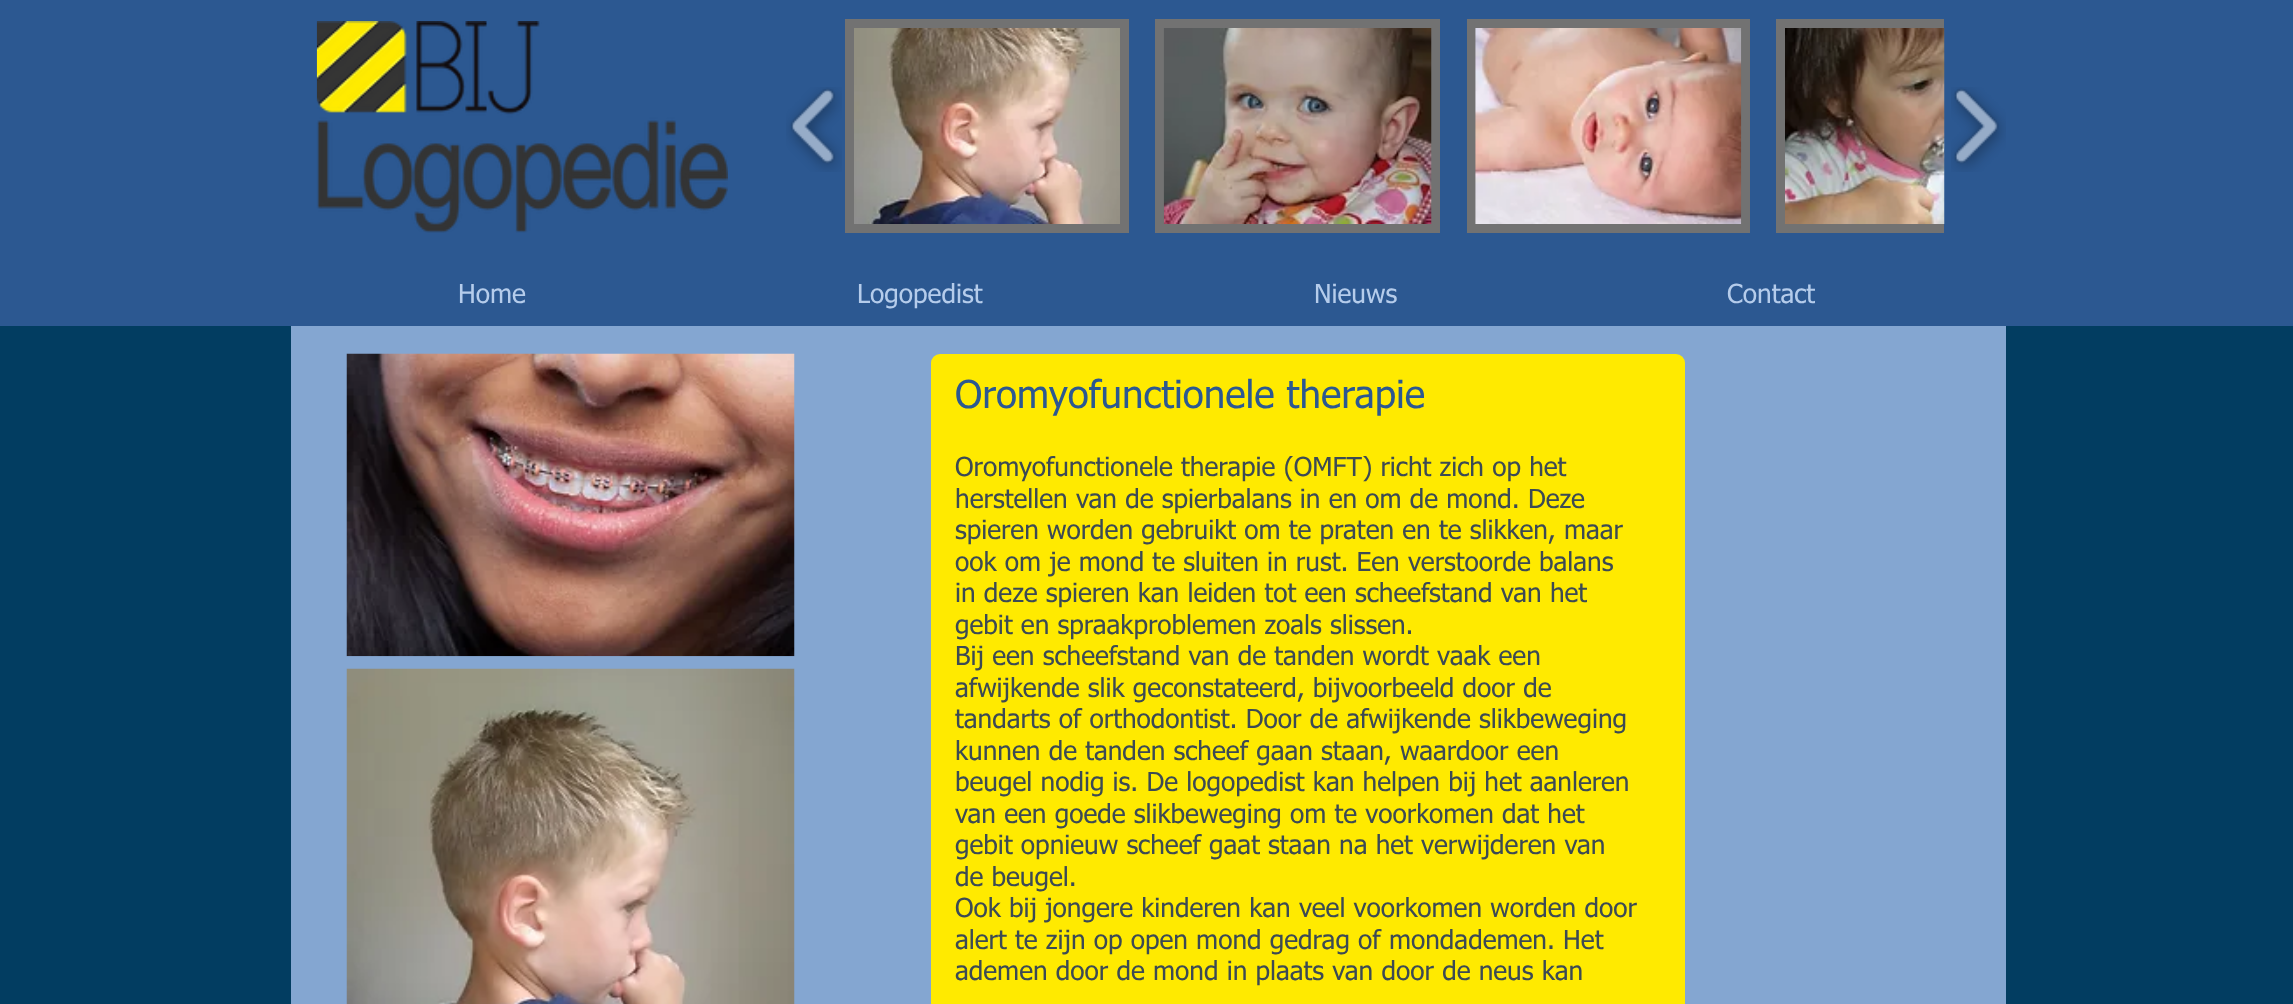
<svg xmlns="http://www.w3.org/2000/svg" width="2293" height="1004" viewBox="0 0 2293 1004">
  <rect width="100%" height="100%" fill="#023d61"/>
  <path d="M0 0h2293v326H0z" fill="#2c5891"/>
  <image x="316" y="21" width="412" height="212" href="img/1.png"/>
  <image x="786" y="87" width="56" height="85" href="img/2.png"/>
  <path d="M845 19h284v214H845z" fill="#727272"/>
  <image x="854" y="28" width="266" height="196" href="img/3.png"/>
  <path d="M1155 19h285v214H1155z" fill="#727272"/>
  <image x="1163" y="28" width="269" height="196" href="img/4.png"/>
  <path d="M1467 19h283v214H1467z" fill="#727272"/>
  <image x="1475" y="28" width="267" height="196" href="img/5.png"/>
  <path d="M1776 19h168v214H1776z" fill="#727272"/>
  <image x="1785" y="28" width="160" height="196" href="img/6.png"/>
  <image x="1951" y="87" width="55" height="85" href="img/7.png"/>
  <path d="M291 326h1715v678H291z" fill="#84a6d1"/>
  <image x="346" y="353" width="449" height="304" href="img/8.png"/>
  <rect x="931" y="354" width="754" height="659" rx="9" fill="#ffea00"/>
  <image x="346" y="668" width="449" height="336" href="img/9.png"/>
  <g font-family="tahoma" font-size="26.25" fill="#b5cceb">
    <text x="458" y="303">Home</text>
    <text x="857" y="303">Logopedist</text>
    <text x="1314" y="303">Nieuws</text>
    <text x="1727" y="303">Contact</text>
  </g>
  <text x="955" y="408" font-family="tahoma" font-size="38.5" fill="#2c5891">Oromyofunctionele therapie</text>
  <g font-family="tahoma" font-size="26.25" fill="#3c4a54">
    <text x="955" y="476">Oromyofunctionele therapie (OMFT) richt zich op het</text>
    <text x="955" y="508">herstellen van de spierbalans in en om de mond. Deze</text>
    <text x="955" y="539">spieren worden gebruikt om te praten en te slikken, maar</text>
    <text x="955" y="571">ook om je mond te sluiten in rust. Een verstoorde balans</text>
    <text x="955" y="602">in deze spieren kan leiden tot een scheefstand van het</text>
    <text x="955" y="634">gebit en spraakproblemen zoals slissen.</text>
    <text x="955" y="665">Bij een scheefstand van de tanden wordt vaak een</text>
    <text x="955" y="697">afwijkende slik geconstateerd, bijvoorbeeld door de</text>
    <text x="955" y="728">tandarts of orthodontist. Door de afwijkende slikbeweging</text>
    <text x="955" y="760">kunnen de tanden scheef gaan staan, waardoor een</text>
    <text x="955" y="791">beugel nodig is. De logopedist kan helpen bij het aanleren</text>
    <text x="955" y="823">van een goede slikbeweging om te voorkomen dat het</text>
    <text x="955" y="854">gebit opnieuw scheef gaat staan na het verwijderen van</text>
    <text x="955" y="886">de beugel.</text>
    <text x="955" y="917">Ook bij jongere kinderen kan veel voorkomen worden door</text>
    <text x="955" y="949">alert te zijn op open mond gedrag of mondademen. Het</text>
    <text x="955" y="980">ademen door de mond in plaats van door de neus kan</text>
  </g>
</svg>
